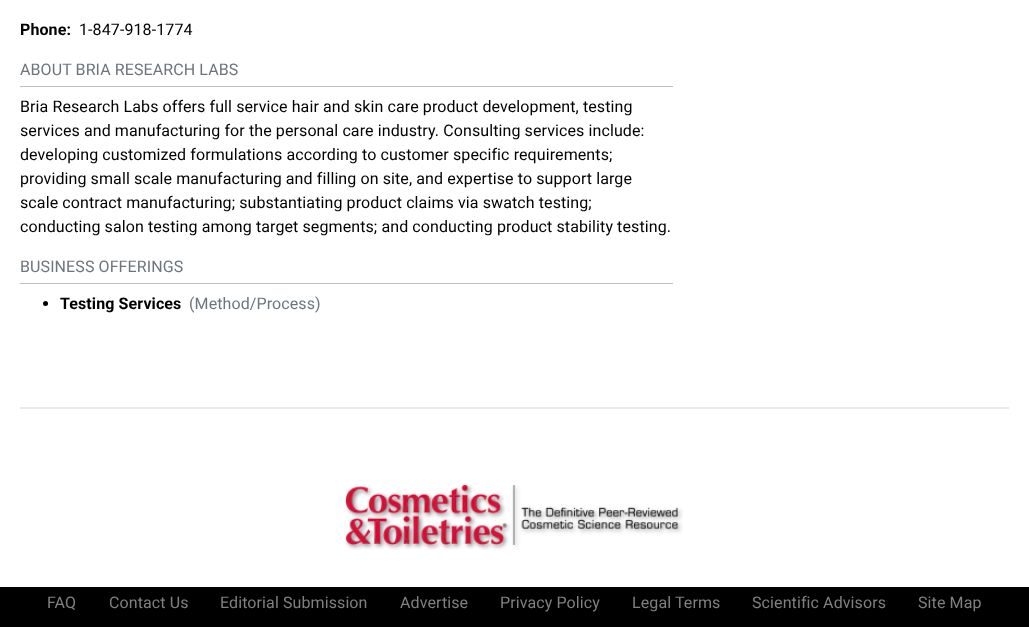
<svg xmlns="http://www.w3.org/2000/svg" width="1029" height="627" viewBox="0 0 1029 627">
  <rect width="100%" height="100%" fill="#fff"/>
  <path d="M20 407h989v2H20z" fill="#ebebeb"/>
  <path d="M20 86h653v1H20z" fill="#bfbfbf"/>
  <path d="M20 283h653v1H20z" fill="#bfbfbf"/>
  <circle cx="45.5" cy="303.5" r="2.5" fill="#000"/>
  <image x="344" y="484" width="339" height="66" href="img/1.png"/>
  <path d="M0 587h1029v40H0z" fill="#000"/>
  <text x="20" y="35" font-family="Roboto" font-size="16" font-weight="bold" letter-spacing="0.1" fill="#000">Phone:</text>
  <text x="79" y="35" font-family="Roboto" font-size="16" letter-spacing="0.1" fill="#000">1-847-918-1774</text>
  <text x="20" y="75" font-family="Roboto" font-size="16" letter-spacing="0.1" fill="#6c757d">ABOUT BRIA RESEARCH LABS</text>
  <g font-family="Roboto" font-size="16" letter-spacing="0.1" fill="#000">
    <text x="20" y="112">Bria Research Labs offers full service hair and skin care product development, testing</text>
    <text x="20" y="136">services and manufacturing for the personal care industry. Consulting services include:</text>
    <text x="20" y="160">developing customized formulations according to customer specific requirements;</text>
    <text x="20" y="184">providing small scale manufacturing and filling on site, and expertise to support large</text>
    <text x="20" y="208">scale contract manufacturing; substantiating product claims via swatch testing;</text>
    <text x="20" y="232">conducting salon testing among target segments; and conducting product stability testing.</text>
  </g>
  <text x="20" y="272" font-family="Roboto" font-size="16" letter-spacing="0.1" fill="#6c757d">BUSINESS OFFERINGS</text>
  <text x="60" y="309" font-family="Roboto" font-size="16" font-weight="bold" letter-spacing="0.1" fill="#000">Testing Services</text>
  <text x="189" y="309" font-family="Roboto" font-size="16" letter-spacing="0.1" fill="#6c757d">(Method/Process)</text>
  <g font-family="Roboto" font-size="16" letter-spacing="0.1" fill="#808080">
    <text x="47" y="608">FAQ</text>
    <text x="109" y="608">Contact Us</text>
    <text x="220" y="608">Editorial Submission</text>
    <text x="400" y="608">Advertise</text>
    <text x="500" y="608">Privacy Policy</text>
    <text x="632" y="608">Legal Terms</text>
    <text x="752" y="608">Scientific Advisors</text>
    <text x="918" y="608">Site Map</text>
  </g>
</svg>
